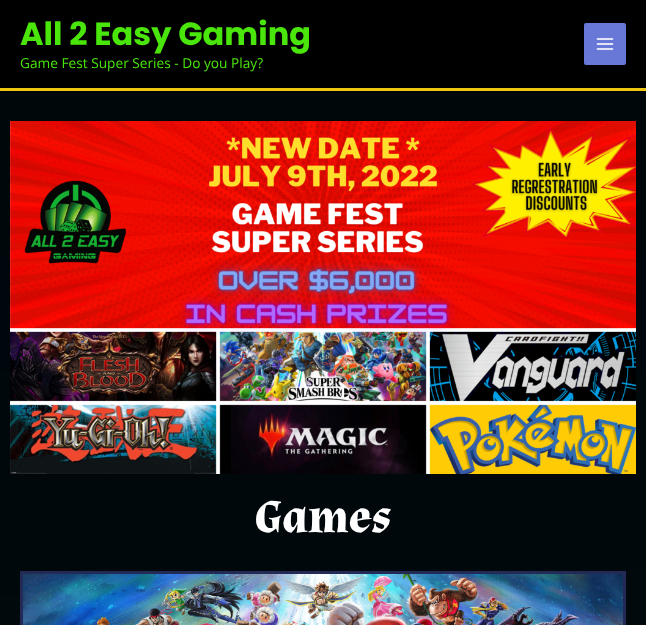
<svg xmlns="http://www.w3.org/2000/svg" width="646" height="625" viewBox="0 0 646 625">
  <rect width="100%" height="100%" fill="#000"/>
  <rect x="584" y="23" width="42" height="42" rx="2" fill="#6878d6"/>
  <image x="596" y="38" width="18" height="12" href="img/1.png"/>
  <path d="M0 88h646v3H0z" fill="#efc70e"/>
  <image x="0" y="91" width="646" height="534" href="img/2.png"/>
  <image x="10" y="121" width="626" height="353" href="img/3.png"/>
  <path d="M21.5 572.5h603v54H21.5z" fill="none" stroke="#242a56" stroke-width="3"/>
  <image x="23" y="574" width="600" height="51" href="img/4.png"/>
  <text x="20" y="45" font-family="Poppins" font-size="32" font-weight="bold" fill="#4ae60b">All 2 Easy Gaming</text>
  <text x="20" y="68" font-family="Open Sans" font-size="13.7" fill="#4ae60b">Game Fest Super Series - Do you Play?</text>
  <text x="256" y="532" font-family="Almendra" font-size="47" font-weight="bold" fill="#fff">Games</text>
</svg>
